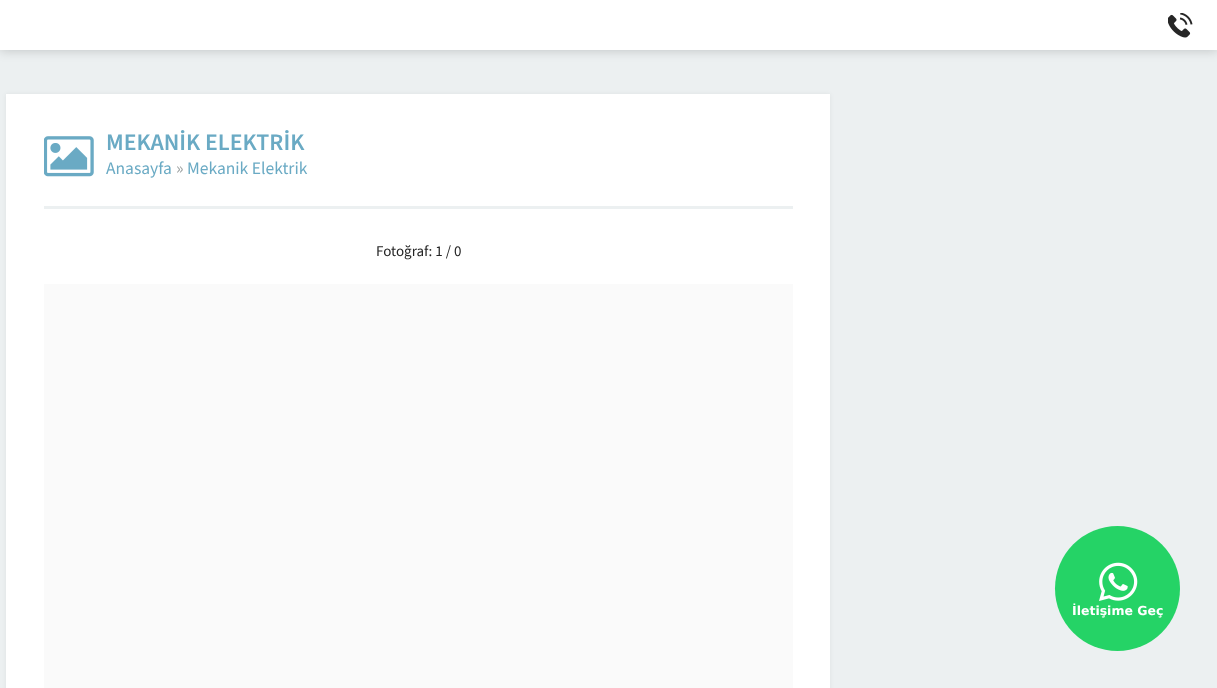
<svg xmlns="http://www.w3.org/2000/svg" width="1217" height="688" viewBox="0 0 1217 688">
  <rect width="100%" height="100%" fill="#ecf0f1"/>
  <path d="M0 0h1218v50H0z" fill="#00000033" filter="blur(6px)"/>
  <path d="M0 0h1217v50H0z" fill="#fff"/>
  <image x="1168" y="13" width="25" height="25" href="img/1.png"/>
  <path d="M6 94h824v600H6z" fill="#0000000f" filter="blur(2px)"/>
  <path d="M6 94h824v594H6z" fill="#fff"/>
  <path d="M44 206h749v3H44z" fill="#ecf0f1"/>
  <image x="44" y="136" width="50" height="41" href="img/2.png"/>
  <path d="M44 284h749v404H44z" fill="#fafafa"/>
  <circle cx="1117.5" cy="588.5" r="62.5" fill="#25d366"/>
  <image x="1099" y="562" width="39" height="39" href="img/3.png"/>
  <text x="106" y="150" font-family="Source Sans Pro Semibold" font-size="23.75" font-weight="600" fill="#6aaac4">MEKANİK ELEKTRİK</text>
  <text x="106" y="174" font-family="Source Sans Pro" font-size="17.5" fill="#6aaac4">Anasayfa</text>
  <text x="176" y="174" font-family="Source Sans Pro" font-size="17.5" fill="#9fa4a4">»</text>
  <text x="187" y="174" font-family="Source Sans Pro" font-size="17.5" fill="#6aaac4">Mekanik Elektrik</text>
  <text x="376" y="256" font-family="Source Sans Pro" font-size="15" fill="#252525">Fotoğraf: 1 / 0</text>
  <text x="1072" y="615" font-family="DejaVu Sans" font-size="12.5" font-weight="bold" fill="#fff">İletişime Geç</text>
</svg>
